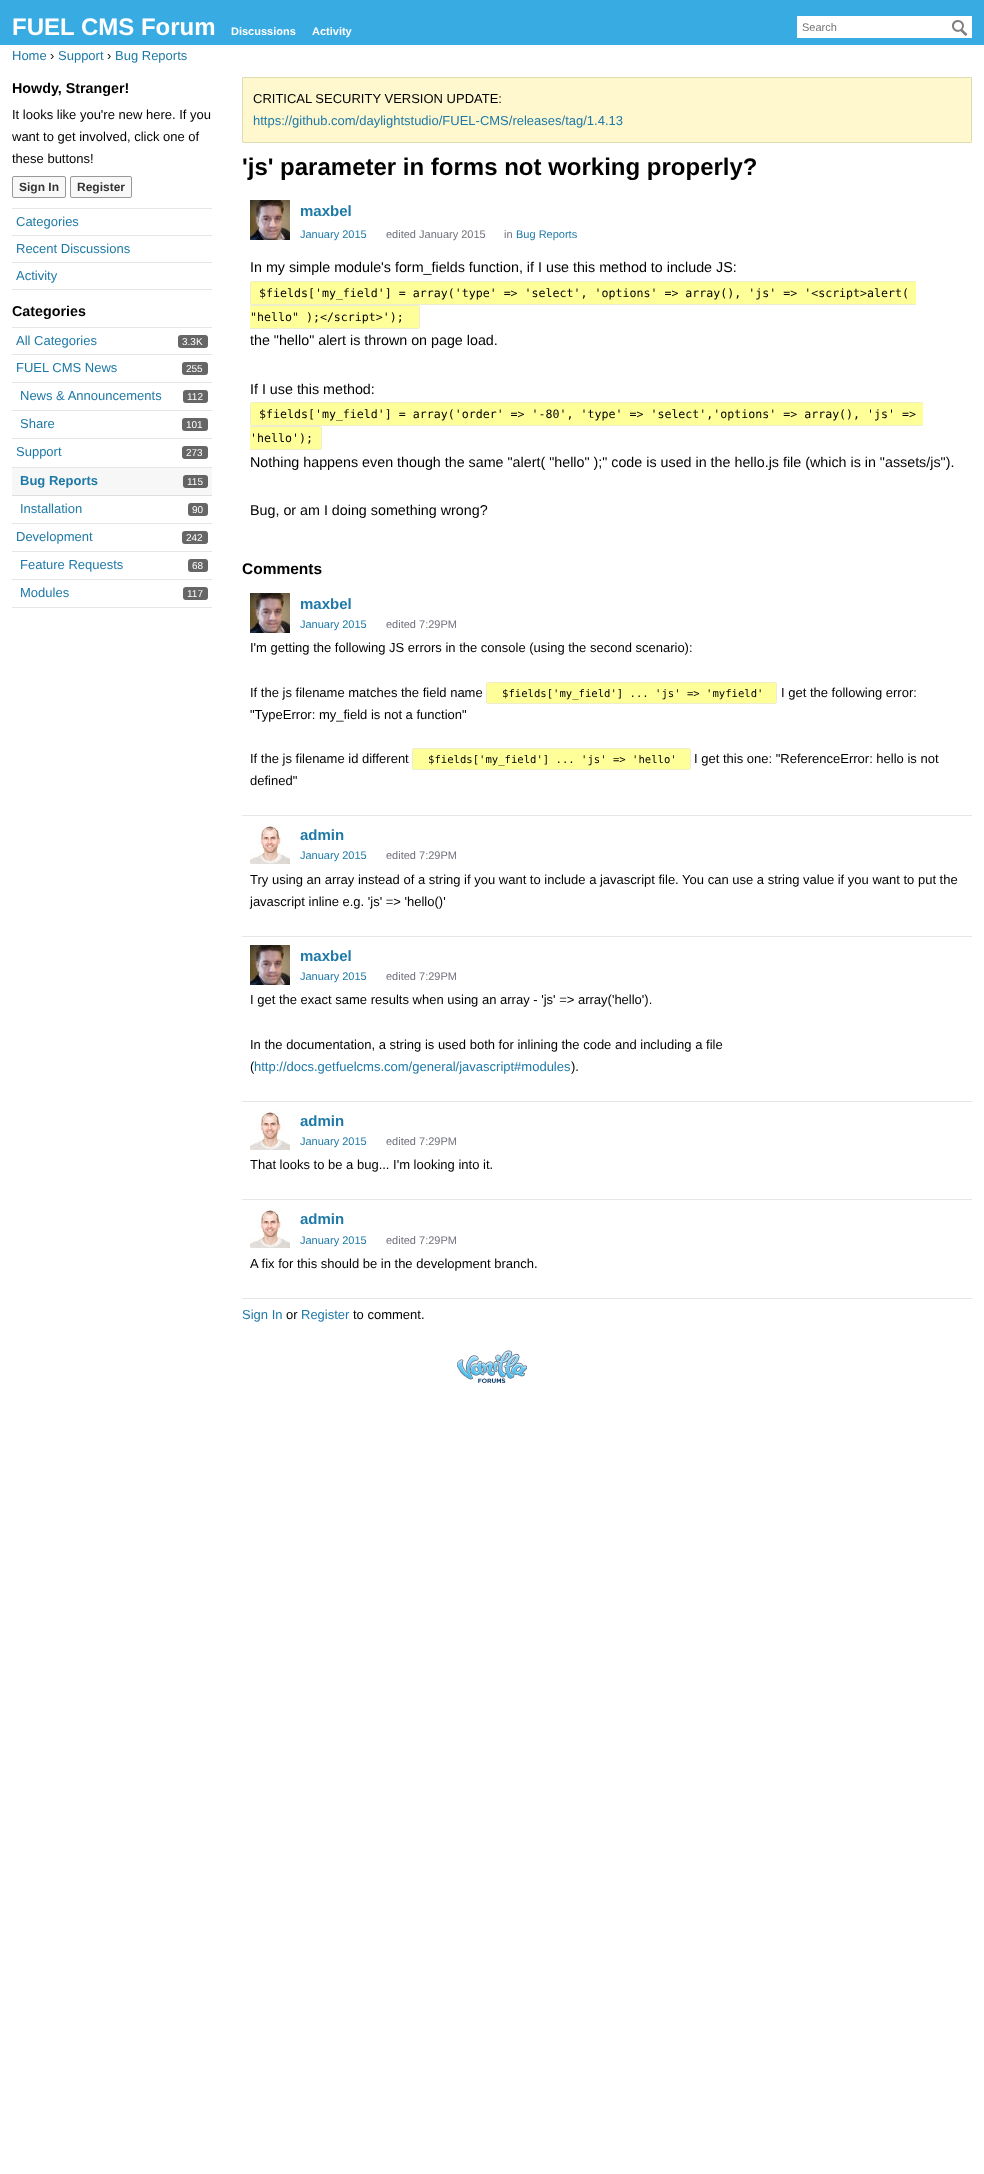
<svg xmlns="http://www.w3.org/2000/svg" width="984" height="2174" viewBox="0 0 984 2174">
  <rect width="100%" height="100%" fill="#fff"/>
  <path d="M0 0h984v45H0z" fill="#38abe3"/>
  <path d="M797 16h175v22H797z" fill="#fff"/>
  <image x="952" y="20" width="16" height="16" href="img/1.png"/>
  <rect x="12.5" y="176.5" width="53" height="21" rx="1.5" fill="#f8f8f8" stroke="#999"/>
  <rect x="70.5" y="176.5" width="61" height="21" rx="1.5" fill="#f8f8f8" stroke="#999"/>
  <path d="M12 208h200v1H12z" fill="#e6e6e6"/>
  <path d="M12 235h200v1H12z" fill="#e6e6e6"/>
  <path d="M12 262h200v1H12z" fill="#e6e6e6"/>
  <path d="M12 289h200v1H12z" fill="#e6e6e6"/>
  <path d="M12 327h200v1H12z" fill="#e6e6e6"/>
  <path d="M12 354h200v1H12z" fill="#e6e6e6"/>
  <rect x="178" y="335" width="30" height="13" rx="3" fill="#666"/>
  <path d="M12 382h200v1H12z" fill="#e6e6e6"/>
  <rect x="182" y="362" width="26" height="13" rx="3" fill="#666"/>
  <path d="M12 410h200v1H12z" fill="#e6e6e6"/>
  <rect x="183" y="390" width="25" height="13" rx="3" fill="#666"/>
  <path d="M12 438h200v1H12z" fill="#e6e6e6"/>
  <rect x="182" y="418" width="26" height="13" rx="3" fill="#666"/>
  <path d="M12 467h200v1H12z" fill="#e6e6e6"/>
  <rect x="182" y="446" width="26" height="13" rx="3" fill="#666"/>
  <path d="M12 468h200v27H12z" fill="#f7f7f7"/>
  <path d="M12 495h200v1H12z" fill="#dedede"/>
  <rect x="183" y="475" width="25" height="13" rx="3" fill="#636363"/>
  <path d="M12 523h200v1H12z" fill="#e6e6e6"/>
  <rect x="188" y="503" width="20" height="13" rx="3" fill="#666"/>
  <path d="M12 551h200v1H12z" fill="#e6e6e6"/>
  <rect x="182" y="531" width="26" height="13" rx="3" fill="#666"/>
  <path d="M12 579h200v1H12z" fill="#e6e6e6"/>
  <rect x="188" y="559" width="20" height="13" rx="3" fill="#666"/>
  <path d="M12 607h200v1H12z" fill="#e6e6e6"/>
  <rect x="183" y="587" width="25" height="13" rx="3" fill="#666"/>
  <rect x="242.5" y="77.5" width="729" height="65" rx="0.5" fill="#fff8ce" stroke="#deddaf"/>
  <image x="250" y="200" width="40" height="40" href="img/2.png"/>
  <path d="M252 281H909V305H252C251 305 250 304 250 303V283C250 282 251 281 252 281Z" fill="#ff9"/>
  <path d="M251 281h658v1H251z" fill="#eec"/>
  <path d="M251 304h658v1H251z" fill="#eec"/>
  <path d="M250 282h1v22H250z" fill="#eec"/>
  <path d="M909 281h7v24H909z" fill="#ff9"/>
  <path d="M909 281h7v1H909z" fill="#eec"/>
  <path d="M909 304h7v1H909z" fill="#eec"/>
  <path d="M250 305H418C419 305 420 306 420 307V327C420 328 419 329 418 329H250Z" fill="#ff9"/>
  <path d="M250 305h169v1H250z" fill="#eec"/>
  <path d="M419 306h1v22H419z" fill="#eec"/>
  <path d="M250 328h169v1H250z" fill="#eec"/>
  <path d="M252 402H916V426H252C251 426 250 425 250 424V404C250 403 251 402 252 402Z" fill="#ff9"/>
  <path d="M251 402h665v1H251z" fill="#eec"/>
  <path d="M251 425h665v1H251z" fill="#eec"/>
  <path d="M250 403h1v22H250z" fill="#eec"/>
  <path d="M916 402h7v24H916z" fill="#ff9"/>
  <path d="M916 402h7v1H916z" fill="#eec"/>
  <path d="M916 425h7v1H916z" fill="#eec"/>
  <path d="M250 426H320C321 426 322 427 322 428V448C322 449 321 450 320 450H250Z" fill="#ff9"/>
  <path d="M250 426h71v1H250z" fill="#eec"/>
  <path d="M321 427h1v22H321z" fill="#eec"/>
  <path d="M250 449h71v1H250z" fill="#eec"/>
  <path d="M242 815h730v1H242z" fill="#e6e6e6"/>
  <image x="250" y="593" width="40" height="40" href="img/2.png"/>
  <rect x="486.5" y="682.5" width="290" height="21" rx="1.5" fill="#ff9" stroke="#eec"/>
  <rect x="412.5" y="748.5" width="278" height="21" rx="1.5" fill="#ff9" stroke="#eec"/>
  <path d="M242 936h730v1H242z" fill="#e6e6e6"/>
  <image x="250" y="824" width="40" height="40" href="img/3.png"/>
  <path d="M242 1101h730v1H242z" fill="#e6e6e6"/>
  <image x="250" y="945" width="40" height="40" href="img/2.png"/>
  <path d="M242 1199h730v1H242z" fill="#e6e6e6"/>
  <image x="250" y="1110" width="40" height="40" href="img/3.png"/>
  <path d="M242 1298h730v1H242z" fill="#e6e6e6"/>
  <image x="250" y="1208" width="40" height="40" href="img/3.png"/>
  <image x="457" y="1350" width="70" height="33" href="img/4.png"/>
  <text x="12" y="35" font-family="Liberation Sans" font-size="24" font-weight="bold" fill="#fff">FUEL CMS Forum</text>
  <g font-family="Liberation Sans" font-size="11" font-weight="bold" fill="#fff">
    <text x="231" y="35">Discussions</text>
    <text x="312" y="35">Activity</text>
  </g>
  <text x="802" y="31" font-family="Liberation Sans" font-size="11" fill="#757575">Search</text>
  <text x="12" y="60" font-family="Liberation Sans" font-size="13" fill="#1e79a7">Home</text>
  <text x="50" y="60" font-family="Liberation Sans" font-size="13" fill="#000">›</text>
  <text x="58" y="60" font-family="Liberation Sans" font-size="13" fill="#1e79a7">Support</text>
  <text x="107" y="60" font-family="Liberation Sans" font-size="13" fill="#000">›</text>
  <text x="115" y="60" font-family="Liberation Sans" font-size="13" fill="#1e79a7">Bug Reports</text>
  <text x="12" y="93" font-family="Liberation Sans" font-size="14.3" font-weight="bold" fill="#000">Howdy, Stranger!</text>
  <g font-family="Liberation Sans" font-size="13" fill="#000">
    <text x="12" y="119">It looks like you're new here. If you</text>
    <text x="12" y="141">want to get involved, click one of</text>
    <text x="12" y="163">these buttons!</text>
  </g>
  <g font-family="Liberation Sans" font-size="12" font-weight="bold" fill="#333">
    <text x="19" y="191">Sign In</text>
    <text x="77" y="191">Register</text>
  </g>
  <g font-family="Liberation Sans" font-size="13" fill="#1e79a7">
    <text x="16" y="226">Categories</text>
    <text x="16" y="253">Recent Discussions</text>
    <text x="16" y="280">Activity</text>
  </g>
  <text x="12" y="316" font-family="Liberation Sans" font-size="14.3" font-weight="bold" fill="#000">Categories</text>
  <text x="16" y="345" font-family="Liberation Sans" font-size="13" fill="#1e79a7">All Categories</text>
  <text x="182" y="345" font-family="Liberation Sans" font-size="10" fill="#fff">3.3K</text>
  <text x="16" y="372" font-family="Liberation Sans" font-size="13" fill="#1e79a7">FUEL CMS News</text>
  <text x="186" y="372" font-family="Liberation Sans" font-size="10" fill="#fff">255</text>
  <text x="20" y="400" font-family="Liberation Sans" font-size="13" fill="#1e79a7">News &amp; Announcements</text>
  <text x="187" y="400" font-family="Liberation Sans" font-size="10" fill="#fff">112</text>
  <text x="20" y="428" font-family="Liberation Sans" font-size="13" fill="#1e79a7">Share</text>
  <text x="186" y="428" font-family="Liberation Sans" font-size="10" fill="#fff">101</text>
  <text x="16" y="456" font-family="Liberation Sans" font-size="13" fill="#1e79a7">Support</text>
  <text x="186" y="456" font-family="Liberation Sans" font-size="10" fill="#fff">273</text>
  <text x="20" y="485" font-family="Liberation Sans" font-size="13" font-weight="bold" fill="#1e79a7">Bug Reports</text>
  <text x="187" y="485" font-family="Liberation Sans" font-size="10" fill="#fff">115</text>
  <text x="20" y="513" font-family="Liberation Sans" font-size="13" fill="#1e79a7">Installation</text>
  <text x="192" y="513" font-family="Liberation Sans" font-size="10" fill="#fff">90</text>
  <text x="16" y="541" font-family="Liberation Sans" font-size="13" fill="#1e79a7">Development</text>
  <text x="186" y="541" font-family="Liberation Sans" font-size="10" fill="#fff">242</text>
  <text x="20" y="569" font-family="Liberation Sans" font-size="13" fill="#1e79a7">Feature Requests</text>
  <text x="192" y="569" font-family="Liberation Sans" font-size="10" fill="#fff">68</text>
  <text x="20" y="597" font-family="Liberation Sans" font-size="13" fill="#1e79a7">Modules</text>
  <text x="187" y="597" font-family="Liberation Sans" font-size="10" fill="#fff">117</text>
  <text x="253" y="103" font-family="Liberation Sans" font-size="13" fill="#000">CRITICAL SECURITY VERSION UPDATE:</text>
  <text x="253" y="125" font-family="Liberation Sans" font-size="13" fill="#1e79a7">https://github.com/daylightstudio/FUEL-CMS/releases/tag/1.4.13</text>
  <text x="242" y="175" font-family="Liberation Sans" font-size="24" font-weight="bold" fill="#000">'js' parameter in forms not working properly?</text>
  <text x="300" y="216" font-family="Liberation Sans" font-size="15" font-weight="bold" fill="#1e79a7">maxbel</text>
  <text x="300" y="238" font-family="Liberation Sans" font-size="11" fill="#1e79a7">January 2015</text>
  <g font-family="Liberation Sans" font-size="11" fill="#70727c">
    <text x="386" y="238">edited January 2015</text>
    <text x="504" y="238">in</text>
  </g>
  <text x="516" y="238" font-family="Liberation Sans" font-size="11" fill="#1e79a7">Bug Reports</text>
  <text x="250" y="272" font-family="Liberation Sans" font-size="14.3" fill="#000">In my simple module's form_fields function, if I use this method to include JS:</text>
  <g font-family="DejaVu Sans Mono" font-size="11.62" fill="#000">
    <text x="259" y="297">$fields['my_field'] = array('type' =&gt; 'select', 'options' =&gt; array(), 'js' =&gt; '&lt;script&gt;alert(</text>
    <text x="250" y="321">"hello" );&lt;/script&gt;');</text>
  </g>
  <g font-family="Liberation Sans" font-size="14.3" fill="#000">
    <text x="250" y="345">the "hello" alert is thrown on page load.</text>
    <text x="250" y="394">If I use this method:</text>
  </g>
  <g font-family="DejaVu Sans Mono" font-size="11.62" fill="#000">
    <text x="259" y="418">$fields['my_field'] = array('order' =&gt; '-80', 'type' =&gt; 'select','options' =&gt; array(), 'js' =&gt;</text>
    <text x="250" y="442">'hello');</text>
  </g>
  <g font-family="Liberation Sans" font-size="14.3" fill="#000">
    <text x="250" y="467">Nothing happens even though the same "alert( "hello" );" code is used in the hello.js file (which is in "assets/js").</text>
    <text x="250" y="515">Bug, or am I doing something wrong?</text>
  </g>
  <text x="242" y="574" font-family="Liberation Sans" font-size="15.5" font-weight="bold" fill="#000">Comments</text>
  <text x="300" y="609" font-family="Liberation Sans" font-size="15" font-weight="bold" fill="#1e79a7">maxbel</text>
  <text x="300" y="628" font-family="Liberation Sans" font-size="11" fill="#1e79a7">January 2015</text>
  <text x="386" y="628" font-family="Liberation Sans" font-size="11" fill="#70727c">edited 7:29PM</text>
  <g font-family="Liberation Sans" font-size="13" fill="#000">
    <text x="250" y="652">I'm getting the following JS errors in the console (using the second scenario):</text>
    <text x="250" y="697">If the js filename matches the field name</text>
  </g>
  <text x="502" y="697" font-family="DejaVu Sans Mono" font-size="10.6" fill="#000">$fields['my_field'] ... 'js' =&gt; 'myfield'</text>
  <g font-family="Liberation Sans" font-size="13" fill="#000">
    <text x="781" y="697">I get the following error:</text>
    <text x="250" y="719">"TypeError: my_field is not a function"</text>
    <text x="250" y="763">If the js filename id different</text>
  </g>
  <text x="428" y="763" font-family="DejaVu Sans Mono" font-size="10.6" fill="#000">$fields['my_field'] ... 'js' =&gt; 'hello'</text>
  <g font-family="Liberation Sans" font-size="13" fill="#000">
    <text x="694" y="763">I get this one: "ReferenceError: hello is not</text>
    <text x="250" y="785">defined"</text>
  </g>
  <text x="300" y="840" font-family="Liberation Sans" font-size="15" font-weight="bold" fill="#1e79a7">admin</text>
  <text x="300" y="859" font-family="Liberation Sans" font-size="11" fill="#1e79a7">January 2015</text>
  <text x="386" y="859" font-family="Liberation Sans" font-size="11" fill="#70727c">edited 7:29PM</text>
  <g font-family="Liberation Sans" font-size="13" fill="#000">
    <text x="250" y="884">Try using an array instead of a string if you want to include a javascript file. You can use a string value if you want to put the</text>
    <text x="250" y="906">javascript inline e.g. 'js' =&gt; 'hello()'</text>
  </g>
  <text x="300" y="961" font-family="Liberation Sans" font-size="15" font-weight="bold" fill="#1e79a7">maxbel</text>
  <text x="300" y="980" font-family="Liberation Sans" font-size="11" fill="#1e79a7">January 2015</text>
  <text x="386" y="980" font-family="Liberation Sans" font-size="11" fill="#70727c">edited 7:29PM</text>
  <g font-family="Liberation Sans" font-size="13" fill="#000">
    <text x="250" y="1004">I get the exact same results when using an array - 'js' =&gt; array('hello').</text>
    <text x="250" y="1049">In the documentation, a string is used both for inlining the code and including a file</text>
    <text x="250" y="1071">(</text>
  </g>
  <text x="254" y="1071" font-family="Liberation Sans" font-size="13" fill="#1e79a7">http://docs.getfuelcms.com/general/javascript#modules</text>
  <text x="571" y="1071" font-family="Liberation Sans" font-size="13" fill="#000">).</text>
  <text x="300" y="1126" font-family="Liberation Sans" font-size="15" font-weight="bold" fill="#1e79a7">admin</text>
  <text x="300" y="1145" font-family="Liberation Sans" font-size="11" fill="#1e79a7">January 2015</text>
  <text x="386" y="1145" font-family="Liberation Sans" font-size="11" fill="#70727c">edited 7:29PM</text>
  <text x="250" y="1169" font-family="Liberation Sans" font-size="13" fill="#000">That looks to be a bug... I'm looking into it.</text>
  <text x="300" y="1224" font-family="Liberation Sans" font-size="15" font-weight="bold" fill="#1e79a7">admin</text>
  <text x="300" y="1244" font-family="Liberation Sans" font-size="11" fill="#1e79a7">January 2015</text>
  <text x="386" y="1244" font-family="Liberation Sans" font-size="11" fill="#70727c">edited 7:29PM</text>
  <text x="250" y="1268" font-family="Liberation Sans" font-size="13" fill="#000">A fix for this should be in the development branch.</text>
  <text x="242" y="1319" font-family="Liberation Sans" font-size="13" fill="#1e79a7">Sign In</text>
  <text x="286" y="1319" font-family="Liberation Sans" font-size="13" fill="#000">or</text>
  <text x="301" y="1319" font-family="Liberation Sans" font-size="13" fill="#1e79a7">Register</text>
  <text x="353" y="1319" font-family="Liberation Sans" font-size="13" fill="#000">to comment.</text>
</svg>
